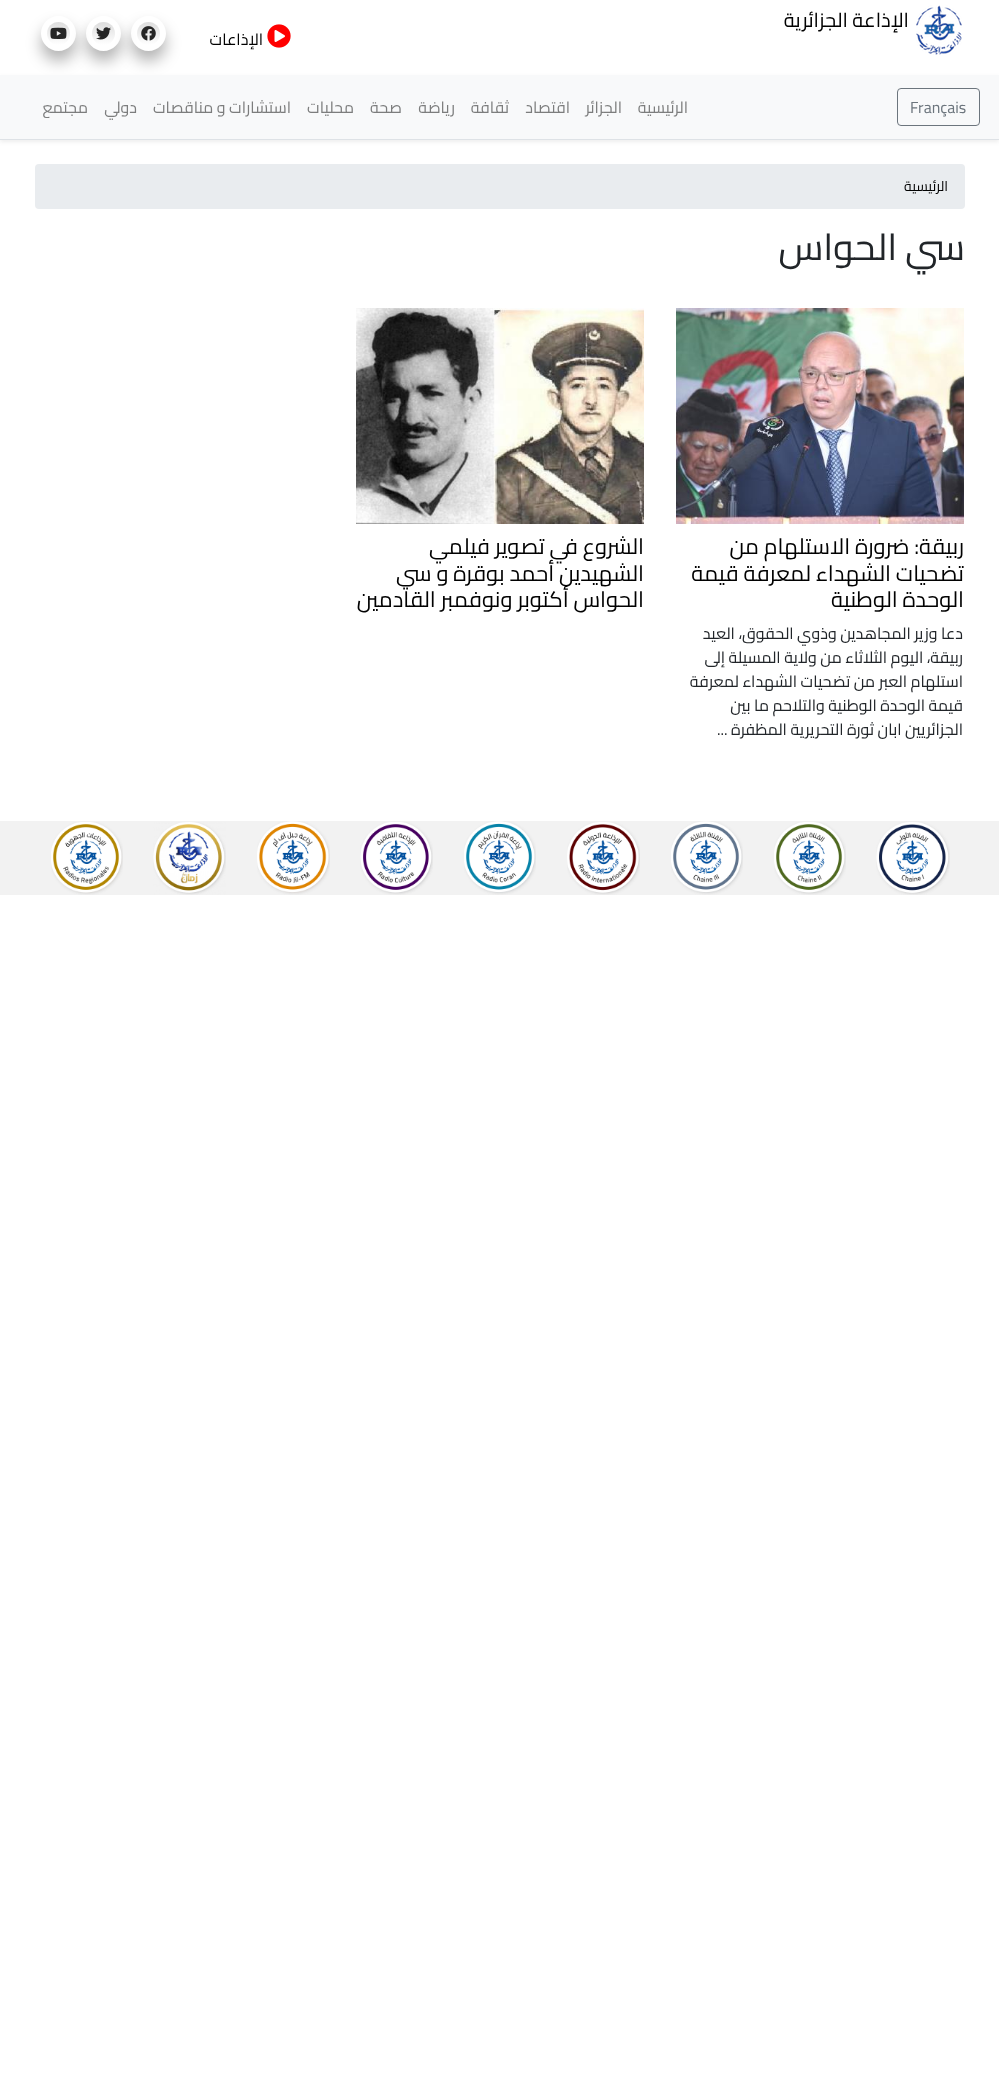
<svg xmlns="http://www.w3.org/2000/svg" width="999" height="2073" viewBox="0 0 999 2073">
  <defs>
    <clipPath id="clip1"><path d="M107 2H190V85H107ZM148.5 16C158 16 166 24 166 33.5C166 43 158 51 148.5 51C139 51 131 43 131 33.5C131 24 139 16 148.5 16Z" clip-rule="evenodd"/></clipPath>
    <linearGradient id="g1" gradientUnits="userSpaceOnUse" x1="149" y1="45" x2="149" y2="22"><stop offset="0" stop-color="#fff"/><stop offset="1" stop-color="#ddd"/></linearGradient>
    <clipPath id="clip2"><path d="M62 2H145V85H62ZM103.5 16C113 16 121 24 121 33.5C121 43 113 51 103.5 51C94 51 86 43 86 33.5C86 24 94 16 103.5 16Z" clip-rule="evenodd"/></clipPath>
    <linearGradient id="g2" gradientUnits="userSpaceOnUse" x1="104" y1="45" x2="104" y2="22"><stop offset="0" stop-color="#fff"/><stop offset="1" stop-color="#ddd"/></linearGradient>
    <clipPath id="clip3"><path d="M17 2H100V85H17ZM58.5 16C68 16 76 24 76 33.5C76 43 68 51 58.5 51C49 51 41 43 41 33.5C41 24 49 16 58.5 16Z" clip-rule="evenodd"/></clipPath>
    <linearGradient id="g3" gradientUnits="userSpaceOnUse" x1="59" y1="45" x2="59" y2="22"><stop offset="0" stop-color="#fff"/><stop offset="1" stop-color="#ddd"/></linearGradient>
  </defs>
  <rect width="100%" height="100%" fill="#fff"/>
  <image x="916" y="5" width="46" height="50" href="img/1.png"/>
  <image x="267" y="24" width="24" height="24" href="img/2.png"/>
  <g clip-path="url(#clip1)">
    <rect x="131" y="26" width="35" height="35" rx="17.5" fill="#0000004d" filter="blur(7.5px)"/>
  </g>
  <circle cx="148.5" cy="33.5" r="11.5" fill="url(#g1)"/>
  <image x="141" y="26" width="15" height="15" href="img/3.png"/>
  <g clip-path="url(#clip2)">
    <rect x="86" y="26" width="35" height="35" rx="17.5" fill="#0000004d" filter="blur(7.5px)"/>
  </g>
  <circle cx="103.5" cy="33.5" r="11.5" fill="url(#g2)"/>
  <image x="96" y="27" width="15" height="13" href="img/4.png"/>
  <g clip-path="url(#clip3)">
    <rect x="41" y="26" width="35" height="35" rx="17.5" fill="#0000004d" filter="blur(7.5px)"/>
  </g>
  <circle cx="58.5" cy="33.5" r="11.5" fill="url(#g3)"/>
  <image x="50" y="27" width="17" height="12" href="img/5.png"/>
  <path d="M0 77h999v65H0z" fill="#00000012" filter="blur(2px)"/>
  <path d="M0 75h999v64H0z" fill="#f8f9fa"/>
  <path d="M0 139h999v1H0z" fill="#dee2e6"/>
  <rect x="897.5" y="88.5" width="82" height="37" rx="3.5" fill="none" stroke="#6c757d"/>
  <rect x="35" y="164" width="930" height="45" rx="4" fill="#e9ecef"/>
  <image x="676" y="308" width="288" height="216" href="img/6.png"/>
  <image x="356" y="308" width="288" height="216" href="img/7.png"/>
  <path d="M0 821h999v74H0z" fill="#f2f2f2"/>
  <image x="876" y="821" width="74" height="74" href="img/8.png"/>
  <image x="774" y="822" width="72" height="73" href="img/9.png"/>
  <image x="671" y="821" width="72" height="74" href="img/10.png"/>
  <image x="567" y="822" width="73" height="73" href="img/11.png"/>
  <image x="464" y="821" width="72" height="74" href="img/12.png"/>
  <image x="360" y="822" width="73" height="73" href="img/13.png"/>
  <image x="257" y="821" width="73" height="74" href="img/14.png"/>
  <image x="153" y="822" width="73" height="73" href="img/15.png"/>
  <image x="51" y="822" width="72" height="73" href="img/16.png"/>
  <text x="909" y="27" font-family="Cairo" font-size="20" direction="rtl" fill="#010101">الإذاعة الجزائرية</text>
  <text x="263" y="45" font-family="Cairo" font-size="16" direction="rtl" fill="#010101">الإذاعات</text>
  <text x="910" y="113" font-family="Cairo" font-size="16" fill="#6c757d">Français</text>
  <g font-family="Cairo" font-size="16" direction="rtl" fill="#7c7d7d">
    <text x="688" y="113">الرئيسية</text>
    <text x="622" y="113">الجزائر</text>
    <text x="570" y="113">اقتصاد</text>
    <text x="509" y="113">ثقافة</text>
    <text x="455" y="113">رياضة</text>
    <text x="402" y="113">صحة</text>
    <text x="354" y="113">محليات</text>
    <text x="291" y="113">استشارات و مناقصات</text>
    <text x="137" y="113">دولي</text>
    <text x="88" y="113">مجتمع</text>
  </g>
  <text x="948" y="191" font-family="Cairo" font-size="14" direction="rtl" fill="#010101">الرئيسية</text>
  <text x="965" y="260" font-family="Cairo" font-size="37" direction="rtl" fill="#212529">سي الحواس</text>
  <g font-family="Cairo" font-size="22" direction="rtl" fill="#010101">
    <text x="964" y="554">ربيقة: ضرورة الاستلهام من</text>
    <text x="964" y="581">تضحيات الشهداء لمعرفة قيمة</text>
    <text x="964" y="607">الوحدة الوطنية</text>
  </g>
  <g font-family="Cairo" font-size="16" direction="rtl" fill="#212529">
    <text x="963" y="639">دعا وزير المجاهدين وذوي الحقوق، العيد</text>
    <text x="963" y="663">ربيقة، اليوم الثلاثاء من ولاية المسيلة إلى</text>
    <text x="963" y="687">استلهام العبر من تضحيات الشهداء لمعرفة</text>
    <text x="963" y="711">قيمة الوحدة الوطنية والتلاحم ما بين</text>
    <text x="963" y="735">الجزائريين ابان ثورة التحريرية المظفرة ...</text>
  </g>
  <g font-family="Cairo" font-size="22" direction="rtl" fill="#010101">
    <text x="644" y="554">الشروع في تصوير فيلمي</text>
    <text x="644" y="581">الشهيدين أحمد بوقرة و سي</text>
    <text x="644" y="607">الحواس أكتوبر ونوفمبر القادمين</text>
  </g>
</svg>
